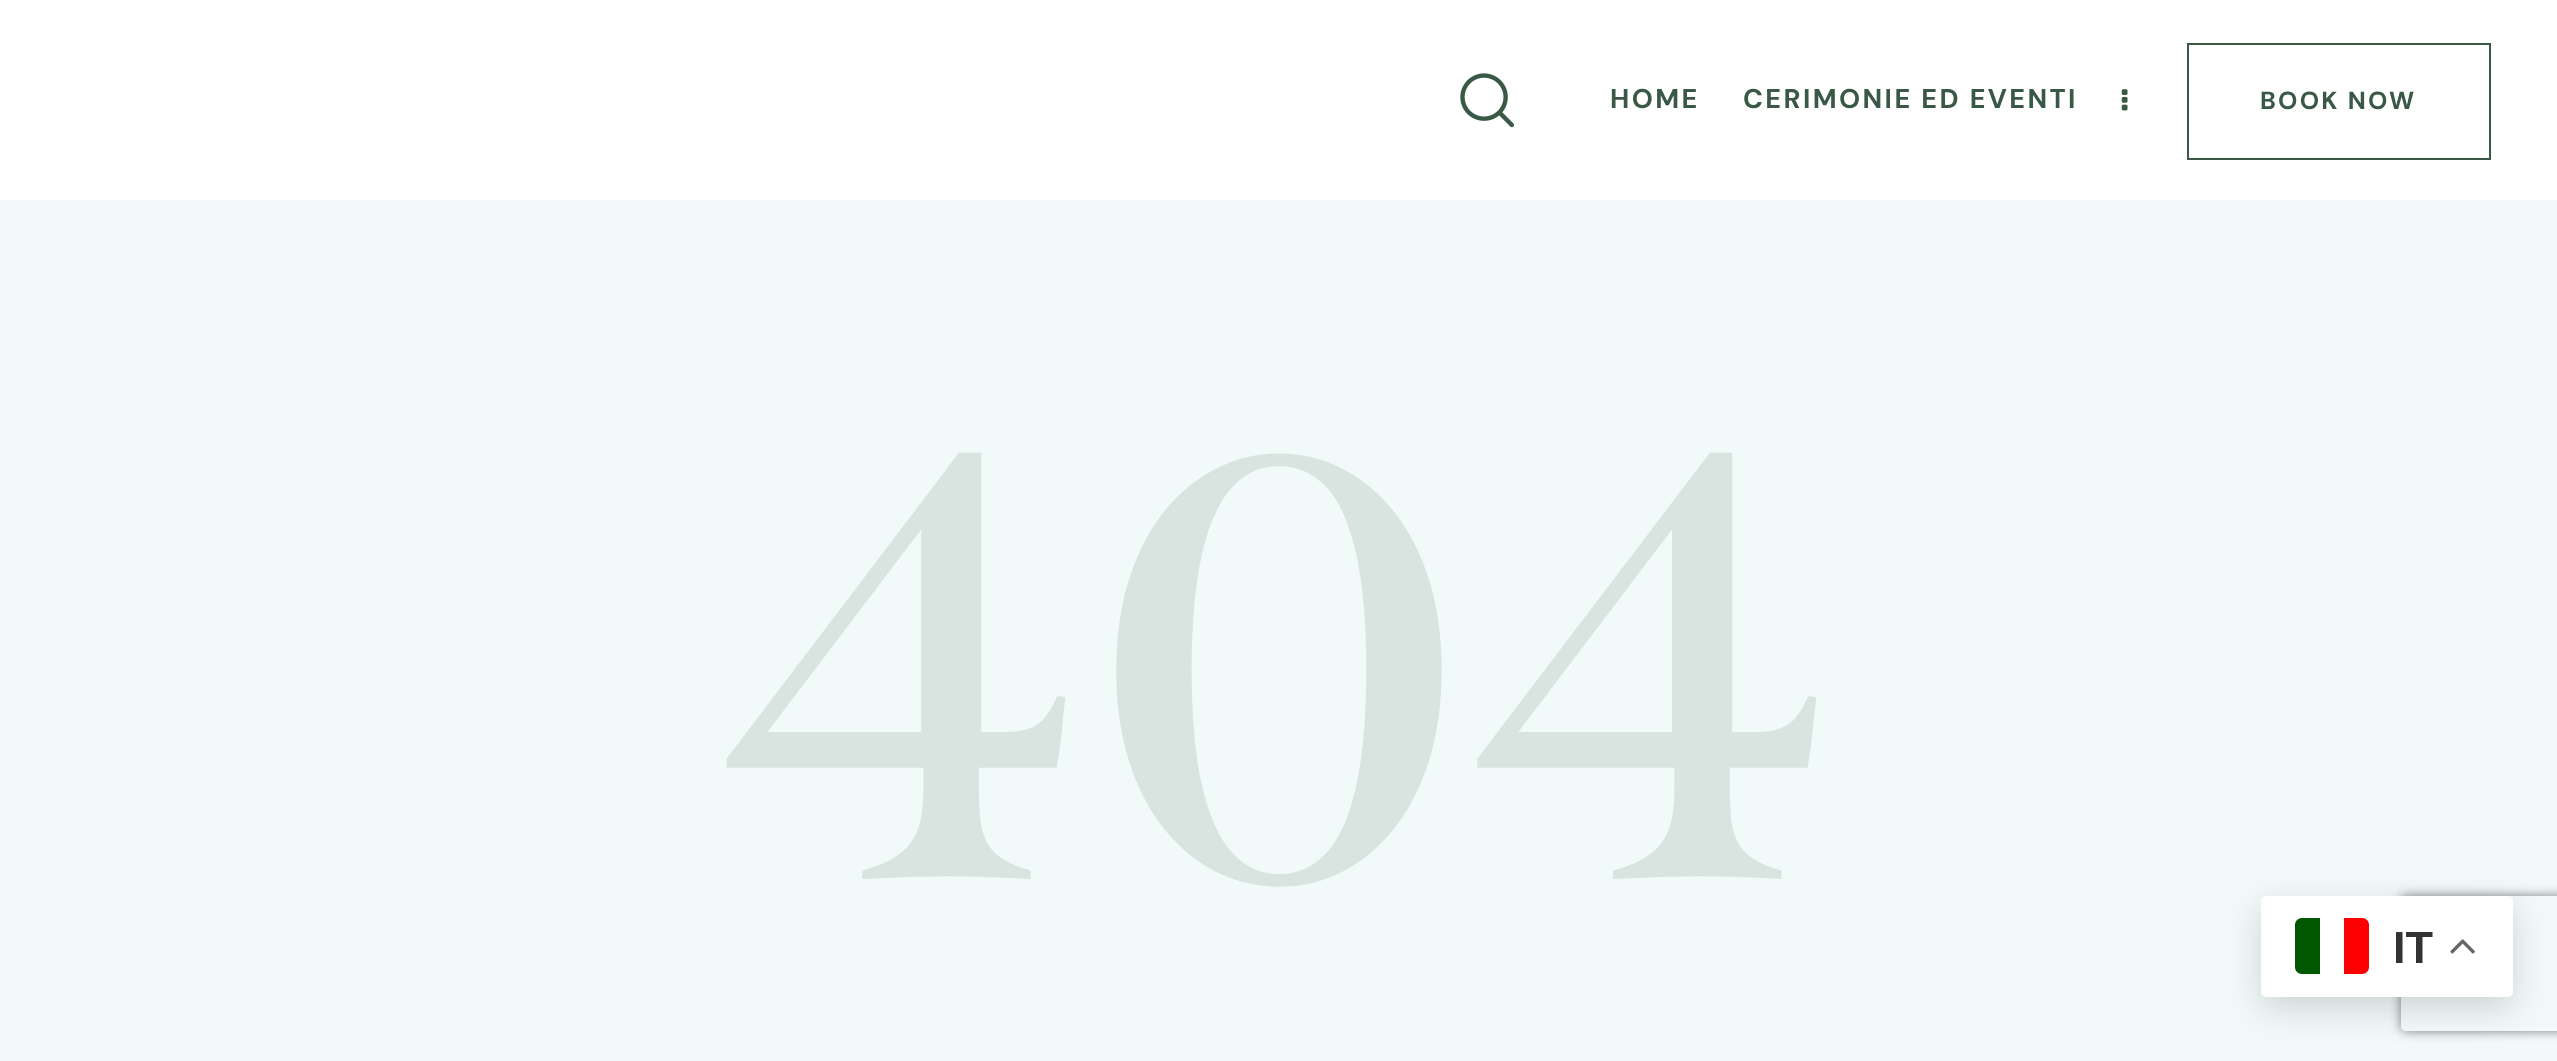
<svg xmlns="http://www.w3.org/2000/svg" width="2557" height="1061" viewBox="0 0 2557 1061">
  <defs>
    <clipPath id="clip1"><path d="M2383 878H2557V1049H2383ZM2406 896H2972C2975 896 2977 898 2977 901V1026C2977 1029 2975 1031 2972 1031H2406C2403 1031 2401 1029 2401 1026V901C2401 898 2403 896 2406 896Z" clip-rule="evenodd"/></clipPath>
  </defs>
  <rect width="100%" height="100%" fill="#f1f9f9"/>
  <path d="M0 0h2557v200H0z" fill="#fff"/>
  <image x="1460" y="73" width="54" height="55" href="img/1.png"/>
  <image x="2121" y="89" width="7" height="22" href="img/2.png"/>
  <path d="M2188 44h302v115H2188z" fill="none" stroke="#395846" stroke-width="2"/>
  <g clip-path="url(#clip1)">
    <rect x="2401" y="896" width="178" height="135" rx="5" fill="#808080" filter="blur(5.5px)"/>
  </g>
  <rect x="2261" y="907" width="252" height="101" rx="5" fill="#00000026" filter="blur(17px)"/>
  <rect x="2261" y="896" width="252" height="101" rx="5" fill="#fff"/>
  <path d="M2302 918H2320V974H2302C2298 974 2295 971 2295 967V925C2295 921 2298 918 2302 918Z" fill="#005700"/>
  <path d="M2344 918H2362C2366 918 2369 921 2369 925V967C2369 971 2366 974 2362 974H2344Z" fill="#fc0000"/>
  <image x="2450" y="939" width="25" height="15" href="img/3.png"/>
  <g font-family="DM Sans" font-size="27" font-weight="bold" letter-spacing="2.4" fill="#395846">
    <text x="1610" y="108">HOME</text>
    <text x="1743" y="108">CERIMONIE ED EVENTI</text>
  </g>
  <text x="2260" y="109" font-family="DM Sans" font-size="24.75" font-weight="bold" letter-spacing="2.25" fill="#395846">BOOK NOW</text>
  <text x="726" y="879" font-family="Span" font-size="608" font-weight="600" fill="#d9e4e1">404</text>
  <text x="2393" y="963" font-family="Liberation Sans" font-size="45" font-weight="bold" fill="#333">IT</text>
</svg>
